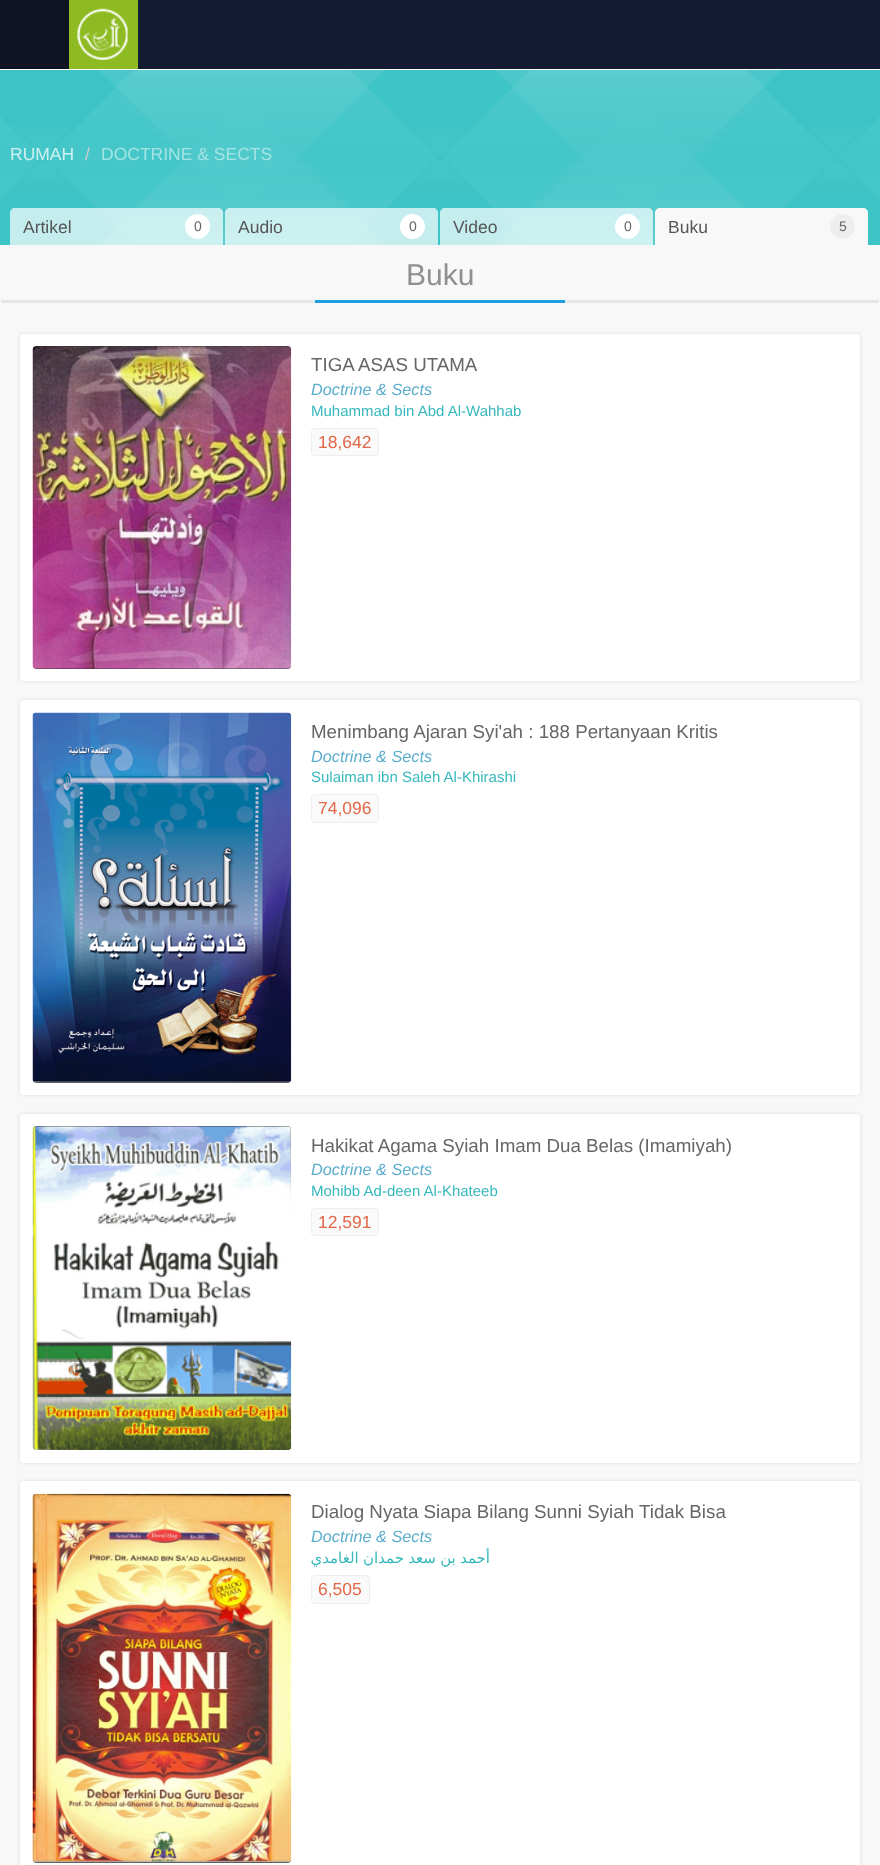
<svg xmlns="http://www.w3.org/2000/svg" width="880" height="1865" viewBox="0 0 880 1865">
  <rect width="100%" height="100%" fill="#fff"/>
  <path d="M138 0h742v69H138z" fill="#121b31"/>
  <path d="M0 0h69v69H0z" fill="#0e1423"/>
  <path d="M69 0h69v69H69z" fill="#8ebb22"/>
  <image x="77" y="8" width="51" height="52" href="img/1.png"/>
  <path d="M0 70h880v175H0z" fill="#3dc4c6"/>
  <image x="0" y="70" width="880" height="175" href="img/2.png"/>
  <path d="M0 245h880v1620H0z" fill="#f8f8f8"/>
  <path d="M15 208H218C221 208 223 210 223 213V245H10V213C10 210 12 208 15 208Z" fill="#ffffffb3"/>
  <circle cx="197.5" cy="226.5" r="12.5" fill="#fff"/>
  <path d="M230 208H433C436 208 438 210 438 213V245H225V213C225 210 227 208 230 208Z" fill="#ffffffb3"/>
  <circle cx="412.5" cy="226.5" r="12.5" fill="#fff"/>
  <path d="M445 208H648C651 208 653 210 653 213V245H440V213C440 210 442 208 445 208Z" fill="#ffffffb3"/>
  <circle cx="627.5" cy="226.5" r="12.5" fill="#fff"/>
  <path d="M660 208H863C866 208 868 210 868 213V245H655V213C655 210 657 208 660 208Z" fill="#f8f8f8"/>
  <circle cx="842.5" cy="226.5" r="12.5" fill="#eee"/>
  <path d="M1 300h878v3H1z" fill="#e6e6e6"/>
  <path d="M315 300h250v3H315z" fill="#1f9fe1"/>
  <rect x="20" y="334" width="840" height="347" rx="4" fill="#0000001a" filter="blur(2px)"/>
  <rect x="20" y="334" width="840" height="347" rx="4" fill="#fff"/>
  <rect x="33" y="346" width="258" height="323" rx="4" fill="#333"/>
  <image x="32" y="346" width="260" height="323" href="img/3.png"/>
  <rect x="311.5" y="428.5" width="67" height="27" rx="3.5" fill="#fafafa" stroke="#eee"/>
  <rect x="20" y="700" width="840" height="395" rx="4" fill="#0000001a" filter="blur(2px)"/>
  <rect x="20" y="700" width="840" height="395" rx="4" fill="#fff"/>
  <rect x="33" y="713" width="258" height="370" rx="4" fill="#333"/>
  <image x="32" y="712" width="260" height="371" href="img/4.png"/>
  <rect x="311.5" y="794.5" width="67" height="28" rx="3.5" fill="#fafafa" stroke="#eee"/>
  <rect x="20" y="1114" width="840" height="349" rx="4" fill="#0000001a" filter="blur(2px)"/>
  <rect x="20" y="1114" width="840" height="349" rx="4" fill="#fff"/>
  <rect x="33" y="1126" width="258" height="324" rx="4" fill="#333"/>
  <image x="32" y="1126" width="260" height="324" href="img/5.png"/>
  <rect x="311.5" y="1208.5" width="67" height="27" rx="3.5" fill="#fafafa" stroke="#eee"/>
  <rect x="20" y="1481" width="840" height="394" rx="4" fill="#0000001a" filter="blur(2px)"/>
  <rect x="20" y="1481" width="840" height="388" rx="4" fill="#fff"/>
  <rect x="33" y="1494" width="258" height="369" rx="4" fill="#333"/>
  <image x="32" y="1493" width="260" height="370" href="img/6.png"/>
  <rect x="311.5" y="1575.5" width="58" height="28" rx="3.5" fill="#fafafa" stroke="#eee"/>
  <text x="10" y="160" font-family="Liberation Sans" font-size="17.5" fill="#d0f1f1">RUMAH</text>
  <text x="85" y="160" font-family="Liberation Sans" font-size="17.5" fill="#ccc">/</text>
  <text x="101" y="160" font-family="Liberation Sans" font-size="17.5" fill="#a5e4e5">DOCTRINE &amp; SECTS</text>
  <text x="23" y="233" font-family="Liberation Sans" font-size="17.5" fill="#555">Artikel</text>
  <text x="194" y="231" font-family="Liberation Sans" font-size="14" fill="#666">0</text>
  <text x="238" y="233" font-family="Liberation Sans" font-size="17.5" fill="#555">Audio</text>
  <text x="409" y="231" font-family="Liberation Sans" font-size="14" fill="#666">0</text>
  <text x="453" y="233" font-family="Liberation Sans" font-size="17.5" fill="#555">Video</text>
  <text x="624" y="231" font-family="Liberation Sans" font-size="14" fill="#666">0</text>
  <text x="668" y="233" font-family="Liberation Sans" font-size="17.5" fill="#555">Buku</text>
  <text x="839" y="231" font-family="Liberation Sans" font-size="14" fill="#666">5</text>
  <text x="406" y="285" font-family="Liberation Sans" font-size="30" fill="#8f8f8f">Buku</text>
  <text x="311" y="371" font-family="Liberation Sans" font-size="18.75" fill="#666">TIGA ASAS UTAMA</text>
  <text x="311" y="395" font-family="Liberation Sans" font-size="16.25" font-style="italic" fill="#5badcd">Doctrine &amp; Sects</text>
  <text x="311" y="416" font-family="Liberation Sans" font-size="15" fill="#37b8bd">Muhammad bin Abd Al-Wahhab</text>
  <text x="318" y="448" font-family="Liberation Sans" font-size="17.5" fill="#e16746">18,642</text>
  <text x="311" y="738" font-family="Liberation Sans" font-size="18.75" fill="#666">Menimbang Ajaran Syi'ah : 188 Pertanyaan Kritis</text>
  <text x="311" y="762" font-family="Liberation Sans" font-size="16.25" font-style="italic" fill="#5badcd">Doctrine &amp; Sects</text>
  <text x="311" y="782" font-family="Liberation Sans" font-size="15" fill="#37b8bd">Sulaiman ibn Saleh Al-Khirashi</text>
  <text x="318" y="814" font-family="Liberation Sans" font-size="17.5" fill="#e16746">74,096</text>
  <text x="311" y="1152" font-family="Liberation Sans" font-size="18.75" fill="#666">Hakikat Agama Syiah Imam Dua Belas (Imamiyah)</text>
  <text x="311" y="1175" font-family="Liberation Sans" font-size="16.25" font-style="italic" fill="#5badcd">Doctrine &amp; Sects</text>
  <text x="311" y="1196" font-family="Liberation Sans" font-size="15" fill="#37b8bd">Mohibb Ad-deen Al-Khateeb</text>
  <text x="318" y="1228" font-family="Liberation Sans" font-size="17.5" fill="#e16746">12,591</text>
  <text x="311" y="1518" font-family="Liberation Sans" font-size="18.75" fill="#666">Dialog Nyata Siapa Bilang Sunni Syiah Tidak Bisa</text>
  <text x="311" y="1542" font-family="Liberation Sans" font-size="16.25" font-style="italic" fill="#5badcd">Doctrine &amp; Sects</text>
  <text x="490" y="1563" word-spacing="-0.5" font-family="DejaVu Sans" font-size="15" direction="rtl" fill="#37b8bd">أحمد بن سعد حمدان الغامدي</text>
  <text x="318" y="1595" font-family="Liberation Sans" font-size="17.5" fill="#e16746">6,505</text>
</svg>
